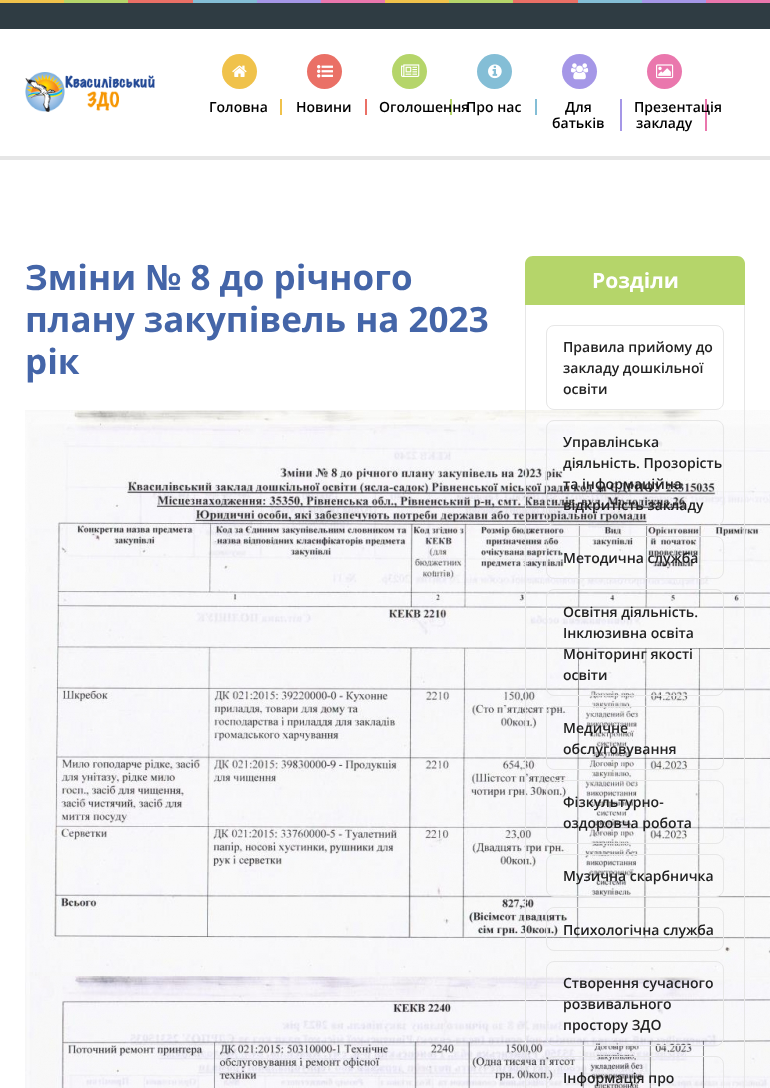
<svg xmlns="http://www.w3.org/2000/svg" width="770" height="1088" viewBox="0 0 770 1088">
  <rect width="100%" height="100%" fill="#fff"/>
  <path d="M0 0h64v3H0z" fill="#f0c24b"/>
  <path d="M64 0h64v3H64z" fill="#b5d56a"/>
  <path d="M128 0h65v3H128z" fill="#ea7066"/>
  <path d="M193 0h64v3H193z" fill="#84bed6"/>
  <path d="M257 0h64v3H257z" fill="#a597e7"/>
  <path d="M321 0h64v3H321z" fill="#ea77ad"/>
  <path d="M385 0h64v3H385z" fill="#f0c24b"/>
  <path d="M449 0h64v3H449z" fill="#b5d56a"/>
  <path d="M513 0h65v3H513z" fill="#ea7066"/>
  <path d="M578 0h64v3H578z" fill="#84bed6"/>
  <path d="M642 0h64v3H642z" fill="#a597e7"/>
  <path d="M706 0h64v3H706z" fill="#ea77ad"/>
  <path d="M0 3h770v26H0z" fill="#2f3c43"/>
  <path d="M0 156h770v4H0z" fill="#e6e6e6"/>
  <image x="25" y="72" width="130" height="40" href="img/1.png"/>
  <circle cx="239.5" cy="71.5" r="17.5" fill="#f0c24b"/>
  <image x="232" y="65" width="15" height="12" href="img/2.png"/>
  <path d="M280 99h2v16H280z" fill="#f0c24b"/>
  <circle cx="324.5" cy="71.5" r="17.5" fill="#ea7066"/>
  <image x="317" y="65" width="16" height="13" href="img/3.png"/>
  <path d="M365 99h2v16H365z" fill="#ea7066"/>
  <circle cx="409.5" cy="71.5" r="17.5" fill="#b5d56a"/>
  <image x="401" y="64" width="19" height="13" href="img/4.png"/>
  <path d="M450 99h2v16H450z" fill="#b5d56a"/>
  <circle cx="494.5" cy="71.5" r="17.5" fill="#84bed6"/>
  <image x="488" y="64" width="14" height="15" href="img/5.png"/>
  <path d="M535 99h2v16H535z" fill="#84bed6"/>
  <circle cx="579.5" cy="71.5" r="17.5" fill="#a597e7"/>
  <image x="571" y="63" width="18" height="17" href="img/6.png"/>
  <path d="M620 99h2v32H620z" fill="#a597e7"/>
  <circle cx="664.5" cy="71.5" r="17.5" fill="#ea77ad"/>
  <image x="656" y="64" width="18" height="15" href="img/7.png"/>
  <path d="M705 99h2v32H705z" fill="#ea77ad"/>
  <image x="25" y="410" width="745" height="566" href="img/8.png"/>
  <image x="25" y="976" width="745" height="112" href="img/9.png"/>
  <path d="M533 256H737C741.5 256 745 259.5 745 264V305H525V264C525 259.5 528.5 256 533 256Z" fill="#b5d56a"/>
  <path d="M525 305H745V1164C745 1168 741 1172 737 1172H533C529 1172 525 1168 525 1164ZM526 305H744V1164C744 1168 741 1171 737 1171H533C529 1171 526 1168 526 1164Z" fill="#e7e7e7" fill-rule="evenodd"/>
  <rect x="546.5" y="325.5" width="177" height="84" rx="7.5" fill="none" stroke="#e7e7e7"/>
  <rect x="546.5" y="420.5" width="177" height="105" rx="7.5" fill="none" stroke="#e7e7e7"/>
  <rect x="546.5" y="536.5" width="177" height="42" rx="7.5" fill="none" stroke="#e7e7e7"/>
  <rect x="546.5" y="589.5" width="177" height="106" rx="7.5" fill="none" stroke="#e7e7e7"/>
  <rect x="546.5" y="706.5" width="177" height="63" rx="7.5" fill="none" stroke="#e7e7e7"/>
  <rect x="546.5" y="780.5" width="177" height="63" rx="7.5" fill="none" stroke="#e7e7e7"/>
  <rect x="546.5" y="854.5" width="177" height="42" rx="7.5" fill="none" stroke="#e7e7e7"/>
  <rect x="546.5" y="907.5" width="177" height="43" rx="7.5" fill="none" stroke="#e7e7e7"/>
  <rect x="546.5" y="961.5" width="177" height="84" rx="7.5" fill="none" stroke="#e7e7e7"/>
  <rect x="546.5" y="1056.5" width="177" height="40" rx="7.5" fill="none" stroke="#e7e7e7"/>
  <g font-family="Open Sans" font-size="14" font-weight="600" fill="#000">
    <text x="209" y="112">Головна</text>
    <text x="296" y="112">Новини</text>
    <text x="379" y="112">Оголошення</text>
    <text x="466" y="112">Про нас</text>
    <text x="565" y="112">Для</text>
    <text x="552" y="128">батьків</text>
    <text x="634" y="112">Презентація</text>
    <text x="636" y="128">закладу</text>
  </g>
  <g font-family="Open Sans" font-size="35" font-weight="bold" fill="#4465a8">
    <text x="25" y="290">Зміни № 8 до річного</text>
    <text x="25" y="332">плану закупівель на 2023</text>
    <text x="25" y="374">рік</text>
  </g>
  <text x="592" y="288" font-family="Open Sans" font-size="21" font-weight="bold" fill="#fff">Розділи</text>
  <g font-family="Open Sans" font-size="14" font-weight="600" fill="#222">
    <text x="563" y="352">Правила прийому до</text>
    <text x="563" y="373">закладу дошкільної</text>
    <text x="563" y="394">освіти</text>
    <text x="563" y="447">Управлінська</text>
    <text x="563" y="468">діяльність. Прозорість</text>
    <text x="563" y="489">та інформаційна</text>
    <text x="563" y="510">відкритість закладу</text>
    <text x="563" y="563">Методична служба</text>
    <text x="563" y="617">Освітня діяльність.</text>
    <text x="563" y="638">Інклюзивна освіта</text>
    <text x="563" y="659">Моніторинг якості</text>
    <text x="563" y="680">освіти</text>
    <text x="563" y="733">Медичне</text>
    <text x="563" y="754">обслуговування</text>
    <text x="563" y="807">Фізкультурно-</text>
    <text x="563" y="828">оздоровча робота</text>
    <text x="563" y="881">Музична скарбничка</text>
    <text x="563" y="935">Психологічна служба</text>
    <text x="563" y="988">Створення сучасного</text>
    <text x="563" y="1009">розвивального</text>
    <text x="563" y="1030">простору ЗДО</text>
    <text x="563" y="1083">Інформація про</text>
  </g>
</svg>
